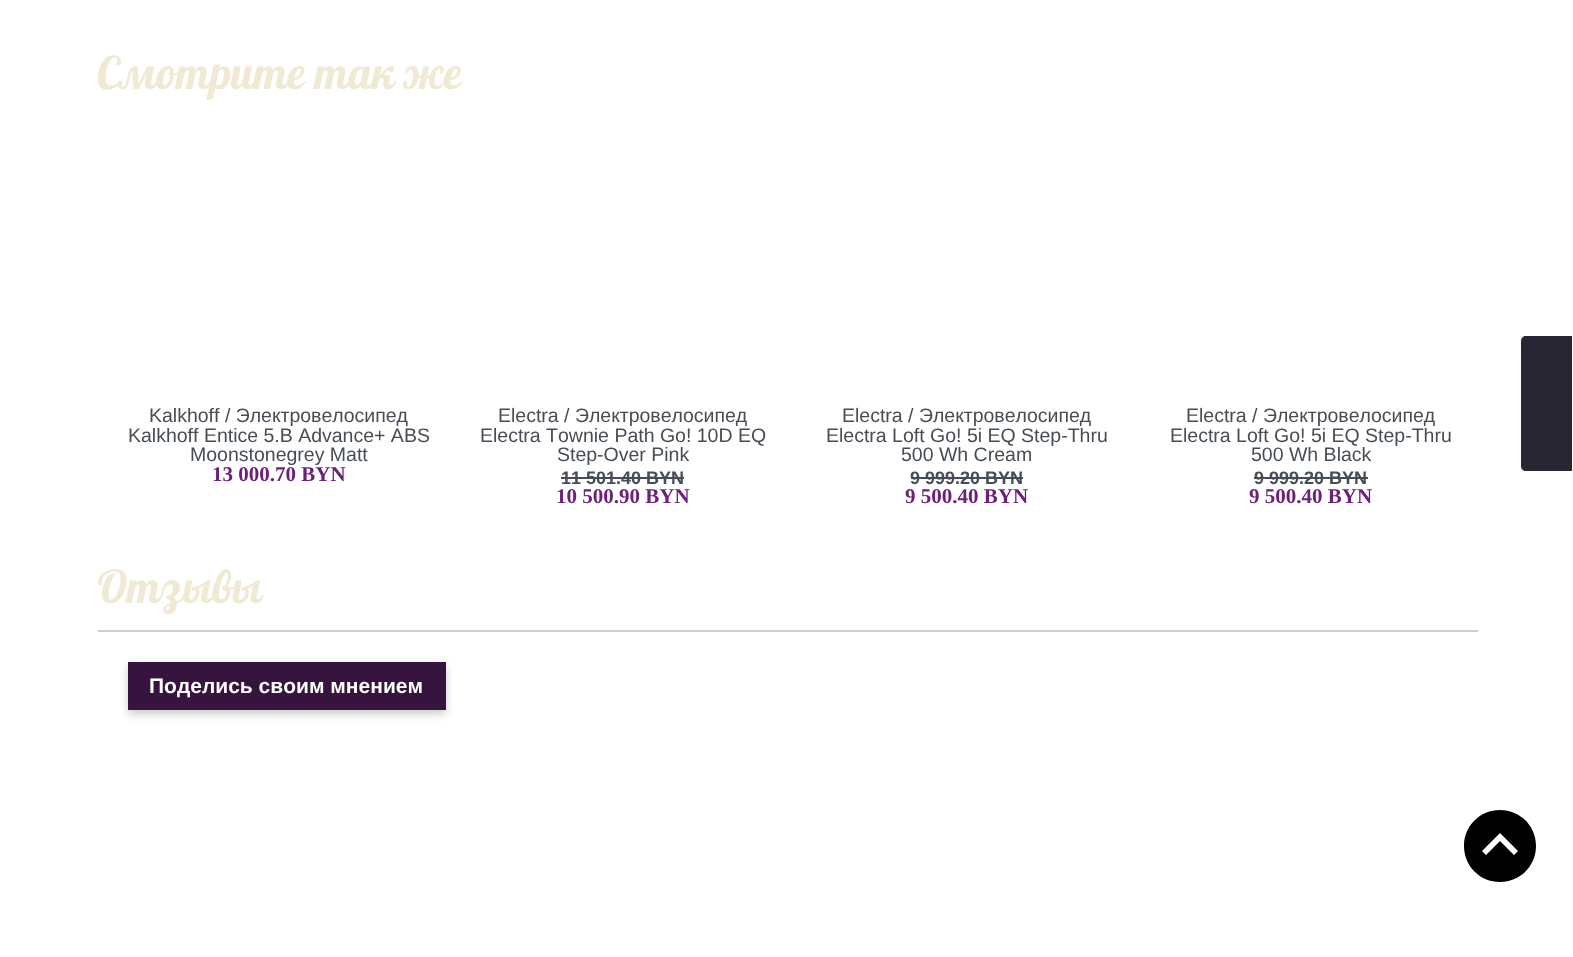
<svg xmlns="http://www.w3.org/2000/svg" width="1573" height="957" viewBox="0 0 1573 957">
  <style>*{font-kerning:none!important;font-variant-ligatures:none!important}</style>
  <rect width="100%" height="100%" fill="#fff"/>
  <path d="M561 477h123v2H561z" fill="#474d54"/>
  <path d="M911 477h112v2H911z" fill="#474d54"/>
  <path d="M1254 477h114v2H1254z" fill="#474d54"/>
  <path d="M98 630h1380v2H98z" fill="#d0cbdb"/>
  <path d="M128 666h318v48H128z" fill="#ccc" filter="blur(4px)"/>
  <path d="M128 662h318v48H128z" fill="#36143d"/>
  <path d="M1526 336H1572V471H1526C1523 471 1521 469 1521 466V341C1521 338 1523 336 1526 336Z" fill="#282633"/>
  <path d="M1500 810C1480 810 1464 826 1464 846C1464 866 1480 882 1500 882C1520 882 1536 866 1536 846C1536 826 1520 810 1500 810ZM1500 833L1518 851L1514 855L1500 841L1486 855L1482 851Z" fill="#000"/>
  <text x="97" y="89" font-family="Lobster" font-size="45" fill="#f0ead4">Смотрите так же</text>
  <g font-family="Liberation Sans" font-size="19.5" fill="#474d54">
    <text x="149" y="422">Kalkhoff / Электровелосипед</text>
    <text x="128" y="442">Kalkhoff Entice 5.B Advance+ ABS</text>
    <text x="190" y="461">Moonstonegrey Matt</text>
  </g>
  <text x="212" y="481" font-family="Liberation Serif" font-size="21" font-weight="bold" fill="#6c207a">13 000.70 BYN</text>
  <g font-family="Liberation Sans" font-size="19.5" fill="#474d54">
    <text x="498" y="422">Electra / Электровелосипед</text>
    <text x="480" y="442">Electra Townie Path Go! 10D EQ</text>
    <text x="557" y="461">Step-Over Pink</text>
  </g>
  <text x="561" y="484" font-family="Liberation Sans" font-size="18" font-weight="bold" fill="#474d54">11 501.40 BYN</text>
  <text x="556" y="503" font-family="Liberation Serif" font-size="21" font-weight="bold" fill="#6c207a">10 500.90 BYN</text>
  <g font-family="Liberation Sans" font-size="19.5" fill="#474d54">
    <text x="842" y="422">Electra / Электровелосипед</text>
    <text x="826" y="442">Electra Loft Go! 5i EQ Step-Thru</text>
    <text x="901" y="461">500 Wh Cream</text>
  </g>
  <text x="910" y="484" font-family="Liberation Sans" font-size="18" font-weight="bold" fill="#474d54">9 999.20 BYN</text>
  <text x="905" y="503" font-family="Liberation Serif" font-size="21" font-weight="bold" fill="#6c207a">9 500.40 BYN</text>
  <g font-family="Liberation Sans" font-size="19.5" fill="#474d54">
    <text x="1186" y="422">Electra / Электровелосипед</text>
    <text x="1170" y="442">Electra Loft Go! 5i EQ Step-Thru</text>
    <text x="1251" y="461">500 Wh Black</text>
  </g>
  <text x="1254" y="484" font-family="Liberation Sans" font-size="18" font-weight="bold" fill="#474d54">9 999.20 BYN</text>
  <text x="1249" y="503" font-family="Liberation Serif" font-size="21" font-weight="bold" fill="#6c207a">9 500.40 BYN</text>
  <text x="97" y="603" font-family="Lobster" font-size="45" fill="#f0ead4">Отзывы</text>
  <text x="149" y="693" font-family="Liberation Sans" font-size="21" font-weight="bold" fill="#fefefe">Поделись своим мнением</text>
</svg>
